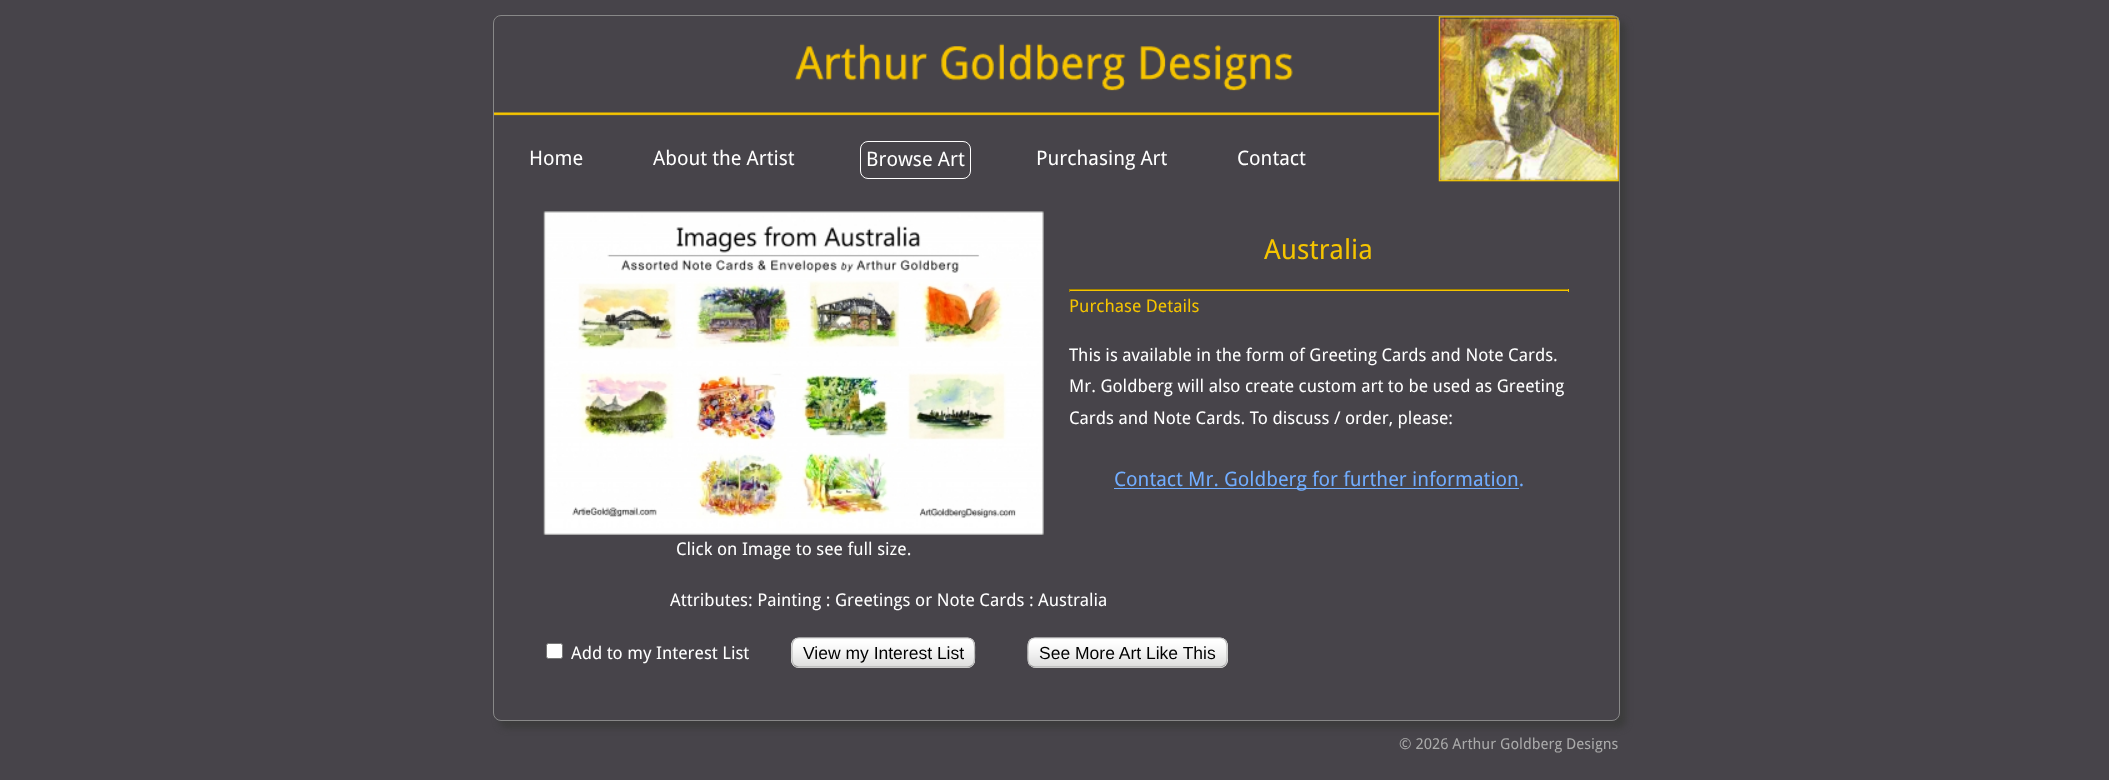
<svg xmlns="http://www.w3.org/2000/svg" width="2109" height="780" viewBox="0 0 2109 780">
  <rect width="100%" height="100%" fill="#47444a"/>
  <rect x="499" y="21" width="1127" height="707" rx="8" fill="#3c3c3c" filter="blur(3px)"/>
  <rect x="493" y="15" width="1127" height="706" rx="8" fill="#47444a"/>
  <image x="494" y="16" width="1125" height="166" href="img/1.png"/>
  <rect x="493.5" y="15.5" width="1126" height="705" rx="7.5" fill="none" stroke="#888"/>
  <rect x="860.5" y="141.5" width="110" height="37" rx="7.5" fill="none" stroke="#fff"/>
  <path d="M1069 289h500v1H1069z" fill="#a38300"/>
  <path d="M1568 289h1v3H1568z" fill="#f5c400"/>
  <path d="M1069 290h500v1H1069z" fill="#f5c400"/>
  <path d="M1069 289h1v3H1069z" fill="#a38300"/>
  <path d="M1114 488h405v1H1114z" fill="#71adff"/>
  <image x="543" y="211" width="501" height="324" href="img/2.png"/>
  <rect x="546.5" y="643.5" width="16" height="15" rx="2" fill="#fff" stroke="#767676"/>
  <rect x="791" y="638" width="184" height="30" rx="8" fill="#fff"/>
  <image x="791" y="637" width="184" height="31" href="img/3.png"/>
  <path d="M794 640C795 639 797 638 799 638H967.5C969.5 638 971 639 972.5 640" fill="none" stroke="#ccc" stroke-width="1.2"/>
  <path d="M972.5 640C975.5 643.5 974.5 648.5 974.5 652.5C974.5 656.5 975.5 661.5 972.5 665" fill="none" stroke="#bbb" stroke-width="1.2"/>
  <path d="M972.5 665C971 666 969.5 667 967.5 667H799C797 667 795 666 794 665" fill="none" stroke="#a0a0a0" stroke-width="1.2"/>
  <path d="M794 665C791 661.5 792 656.5 792 652.5C792 648.5 791 643.5 794 640" fill="none" stroke="#bbb" stroke-width="1.2"/>
  <rect x="1028" y="638" width="200" height="30" rx="8" fill="#fff"/>
  <image x="1027" y="637" width="201" height="31" href="img/4.png"/>
  <path d="M1030 640C1031.5 639 1033 638 1035 638H1220C1222 638 1223.5 639 1225 640" fill="none" stroke="#ccc" stroke-width="1.2"/>
  <path d="M1225 640C1228 643.5 1227 648.5 1227 652.5C1227 656.5 1228 661.5 1225 665" fill="none" stroke="#bbb" stroke-width="1.2"/>
  <path d="M1225 665C1223.5 666 1222 667 1220 667H1035C1033 667 1031.5 666 1030 665" fill="none" stroke="#a0a0a0" stroke-width="1.2"/>
  <path d="M1030 665C1027 661.5 1028 656.5 1028 652.5C1028 648.5 1027 643.5 1030 640" fill="none" stroke="#bbb" stroke-width="1.2"/>
  <g font-family="Droid Sans" font-size="20" fill="#fff">
    <text x="529" y="165">Home</text>
    <text x="653" y="165">About the Artist</text>
    <text x="866" y="166">Browse Art</text>
    <text x="1036" y="165">Purchasing Art</text>
    <text x="1237" y="165">Contact</text>
  </g>
  <text x="1264" y="259" font-family="Droid Sans" font-size="27.5" fill="#f5c400">Australia</text>
  <text x="1069" y="312" font-family="Droid Sans" font-size="17.5" fill="#f5c400">Purchase Details</text>
  <g font-family="Droid Sans" font-size="17.5" fill="#fff">
    <text x="1069" y="361">This is available in the form of Greeting Cards and Note Cards.</text>
    <text x="1069" y="392">Mr. Goldberg will also create custom art to be used as Greeting</text>
    <text x="1069" y="424">Cards and Note Cards. To discuss / order, please:</text>
  </g>
  <text x="1114" y="486" font-family="Droid Sans" font-size="20" fill="#71adff">Contact Mr. Goldberg for further information.</text>
  <g font-family="Droid Sans" font-size="17.5" fill="#fff">
    <text x="676" y="555">Click on Image to see full size.</text>
    <text x="670" y="606">Attributes: Painting : Greetings or Note Cards : Australia</text>
    <text x="571" y="659">Add to my Interest List</text>
  </g>
  <g font-family="Liberation Sans" font-size="17.5" fill="#000">
    <text x="803" y="659">View my Interest List</text>
    <text x="1039" y="659">See More Art Like This</text>
  </g>
  <text x="1399" y="749" font-family="Droid Sans" font-size="15" fill="#aaa">© 2026 Arthur Goldberg Designs</text>
</svg>
